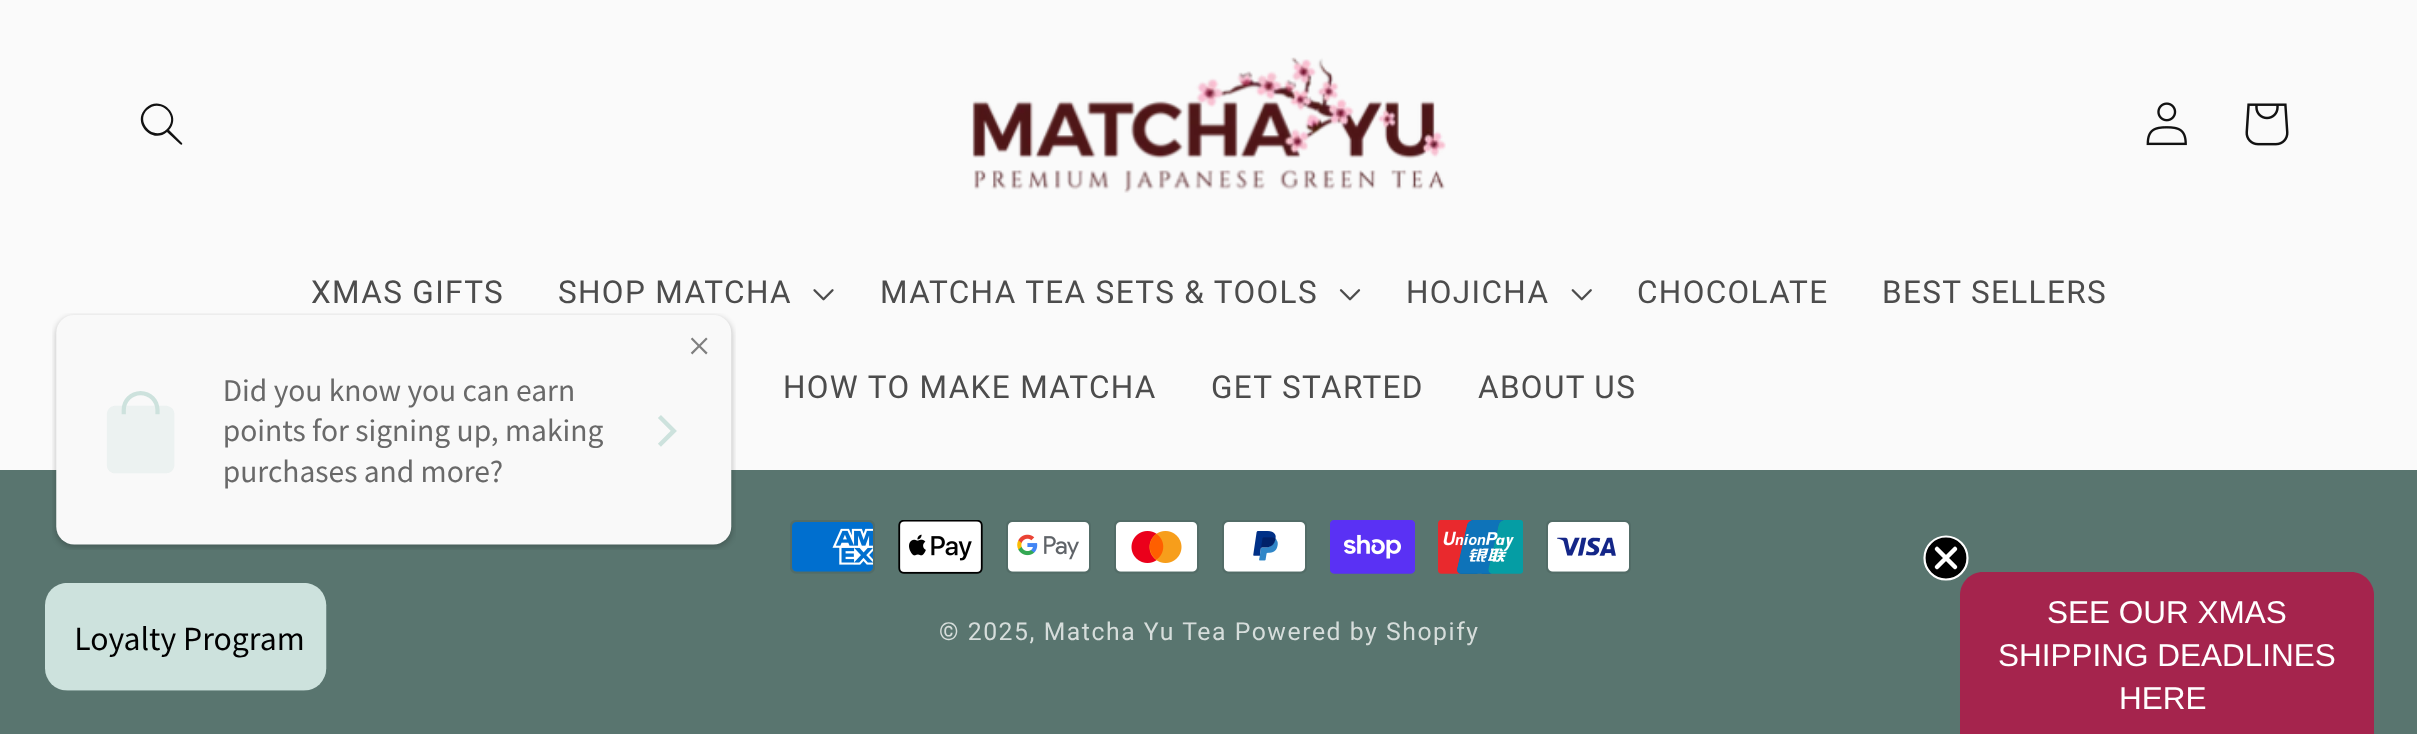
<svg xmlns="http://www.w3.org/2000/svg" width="2417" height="734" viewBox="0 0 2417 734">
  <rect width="100%" height="100%" fill="#59756f"/>
  <path d="M0 0h2417v470H0z" fill="#fafafa"/>
  <path d="M167 129C154 142 135 122 147 110C160 97 180 116 167 129M167 132C152 145 131 122 146 108C160 94 183 115 169 130L182 143C183 145 181 145 180 144Z" fill="#121212" fill-rule="evenodd"/>
  <image x="972" y="57" width="474" height="136" href="img/1.png"/>
  <image x="2146" y="102" width="41" height="44" href="img/2.png"/>
  <image x="2245" y="103" width="44" height="43" href="img/3.png"/>
  <image x="813" y="289" width="21" height="12" href="img/4.png"/>
  <image x="1339" y="289" width="22" height="12" href="img/5.png"/>
  <image x="1571" y="289" width="21" height="12" href="img/6.png"/>
  <image x="52" y="313" width="684" height="237" href="img/7.png"/>
  <image x="45" y="583" width="282" height="108" href="img/8.png"/>
  <image x="790" y="520" width="85" height="54" href="img/9.png"/>
  <image x="898" y="520" width="85" height="54" href="img/10.png"/>
  <image x="1006" y="520" width="85" height="54" href="img/11.png"/>
  <image x="1114" y="520" width="85" height="54" href="img/12.png"/>
  <image x="1222" y="520" width="85" height="54" href="img/13.png"/>
  <image x="1330" y="520" width="85" height="54" href="img/14.png"/>
  <image x="1438" y="520" width="85" height="54" href="img/15.png"/>
  <image x="1546" y="520" width="85" height="54" href="img/16.png"/>
  <path d="M1983 572H2351C2363.5 572 2374 582.5 2374 595V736H1960V595C1960 582.5 1970.5 572 1983 572Z" fill="#a5244d"/>
  <circle cx="1946" cy="558" r="21.5" fill="#000" stroke="#fff" stroke-width="2.2"/>
  <path d="M1937 549L1955 567M1937 567L1955 549Z" fill="none" stroke="#fff" stroke-width="4.5" stroke-linecap="round" stroke-linejoin="round"/>
  <g font-family="Roboto" font-size="31.5" letter-spacing="1.35" fill="#4c4c4c">
    <text x="311" y="303">XMAS GIFTS</text>
    <text x="558" y="303">SHOP MATCHA</text>
    <text x="880" y="303">MATCHA TEA SETS &amp; TOOLS</text>
    <text x="1406" y="303">HOJICHA</text>
    <text x="1637" y="303">CHOCOLATE</text>
    <text x="1882" y="303">BEST SELLERS</text>
    <text x="783" y="398">HOW TO MAKE MATCHA</text>
    <text x="1211" y="398">GET STARTED</text>
    <text x="1478" y="398">ABOUT US</text>
  </g>
  <text x="939" y="640" font-family="Roboto" font-size="24.75" letter-spacing="1.55" fill="#d6dddb">© 2025, Matcha Yu Tea Powered by Shopify</text>
  <g font-family="Liberation Sans" font-size="31.5" fill="#fff">
    <text x="2047" y="623">SEE OUR XMAS</text>
    <text x="1998" y="666">SHIPPING DEADLINES</text>
    <text x="2119" y="709">HERE</text>
  </g>
</svg>
